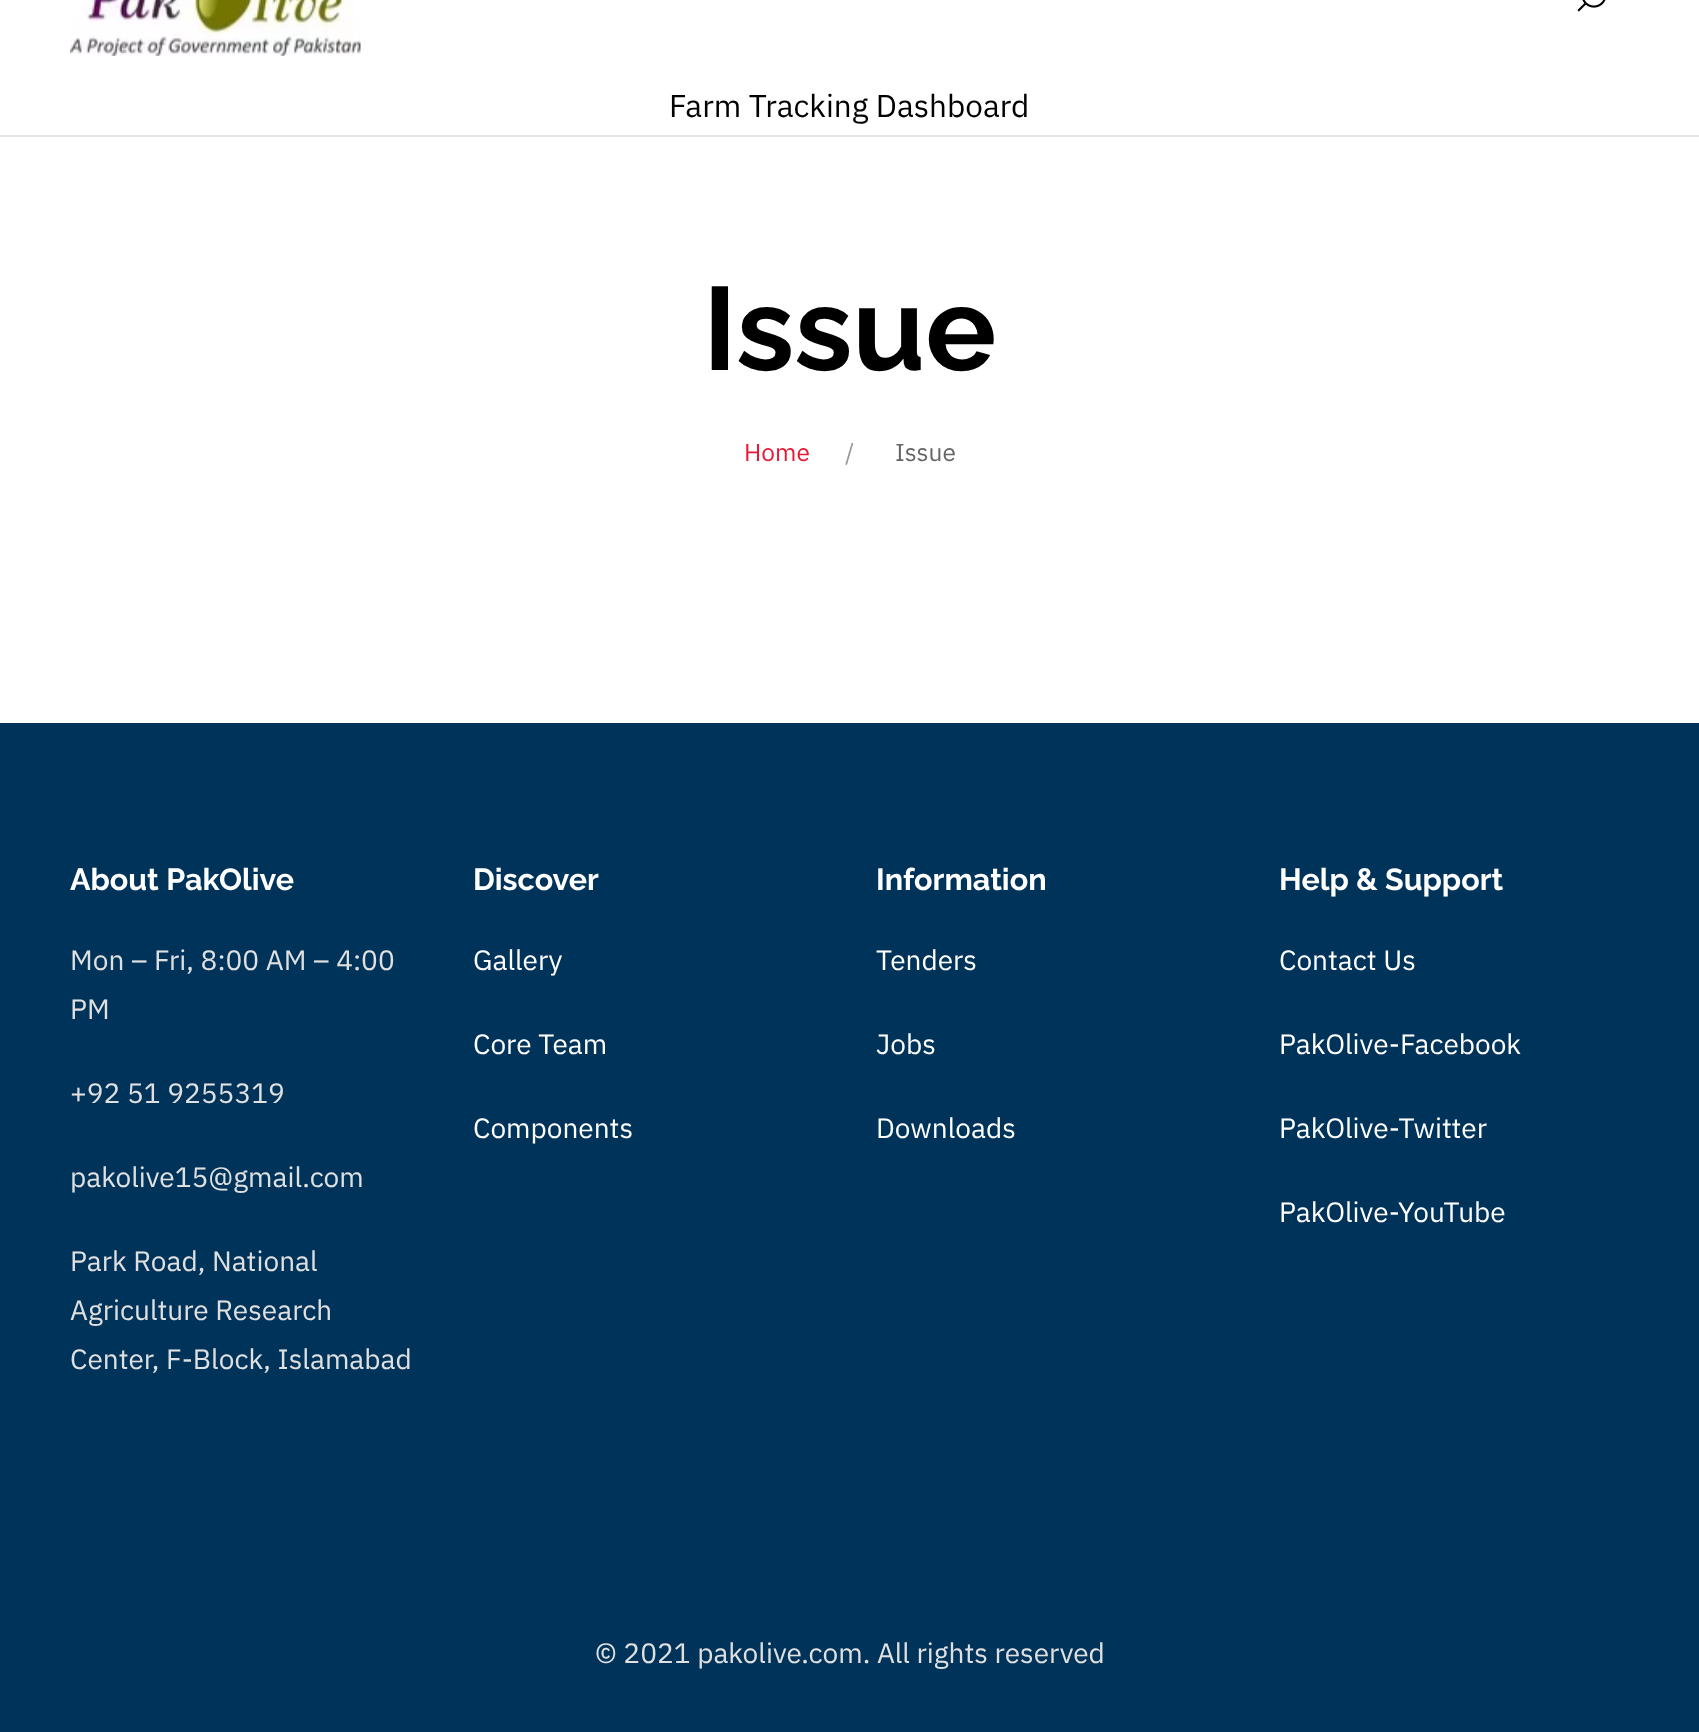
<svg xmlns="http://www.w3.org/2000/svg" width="1699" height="1732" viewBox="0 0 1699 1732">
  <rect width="100%" height="100%" fill="#fff"/>
  <path d="M0 135h1699v2H0z" fill="#e5e5e5"/>
  <image x="70" y="0" width="291" height="56" href="img/1.png"/>
  <image x="1577" y="0" width="29" height="12" href="img/2.png"/>
  <path d="M0 723h1699v1009H0z" fill="#00335a"/>
  <text x="669" y="117" font-family="IBM Plex Sans" font-size="31.5" fill="#000">Farm Tracking Dashboard</text>
  <text x="703" y="370" font-family="Raleway" font-size="118" font-weight="100" fill="#000">Issue</text>
  <text x="744" y="461" font-family="IBM Plex Sans" font-size="24.5" fill="#e61937">Home</text>
  <text x="845" y="461" font-family="IBM Plex Sans" font-size="24.5" fill="#999">/</text>
  <text x="895" y="461" font-family="IBM Plex Sans" font-size="24.5" fill="#666">Issue</text>
  <text x="70" y="890" font-family="Raleway" font-size="30.5" font-weight="100" fill="#fff">About PakOlive</text>
  <g font-family="IBM Plex Sans" font-size="28" fill="#e0e0e0">
    <text x="70" y="970">Mon – Fri, 8:00 AM – 4:00</text>
    <text x="70" y="1019">PM</text>
    <text x="70" y="1103">+92 51 9255319</text>
    <text x="70" y="1187">pakolive15@gmail.com</text>
    <text x="70" y="1271">Park Road, National</text>
    <text x="70" y="1320">Agriculture Research</text>
    <text x="70" y="1369">Center, F-Block, Islamabad</text>
  </g>
  <text x="473" y="890" font-family="Raleway" font-size="30.5" font-weight="100" fill="#fff">Discover</text>
  <g font-family="IBM Plex Sans" font-size="28" fill="#fff">
    <text x="473" y="970">Gallery</text>
    <text x="473" y="1054">Core Team</text>
    <text x="473" y="1138">Components</text>
  </g>
  <text x="876" y="890" font-family="Raleway" font-size="30.5" font-weight="100" fill="#fff">Information</text>
  <g font-family="IBM Plex Sans" font-size="28" fill="#fff">
    <text x="876" y="970">Tenders</text>
    <text x="876" y="1054">Jobs</text>
    <text x="876" y="1138">Downloads</text>
  </g>
  <text x="1279" y="890" font-family="Raleway" font-size="30.5" font-weight="100" fill="#fff">Help &amp; Support</text>
  <g font-family="IBM Plex Sans" font-size="28" fill="#fff">
    <text x="1279" y="970">Contact Us</text>
    <text x="1279" y="1054">PakOlive-Facebook</text>
    <text x="1279" y="1138">PakOlive-Twitter</text>
    <text x="1279" y="1222">PakOlive-</text>
    <text x="1398" y="1222">YouTube</text>
  </g>
  <text x="595" y="1663" font-family="IBM Plex Sans" font-size="28" fill="#e0e0e0">© 2021 pakolive.com. All rights reserved</text>
</svg>
